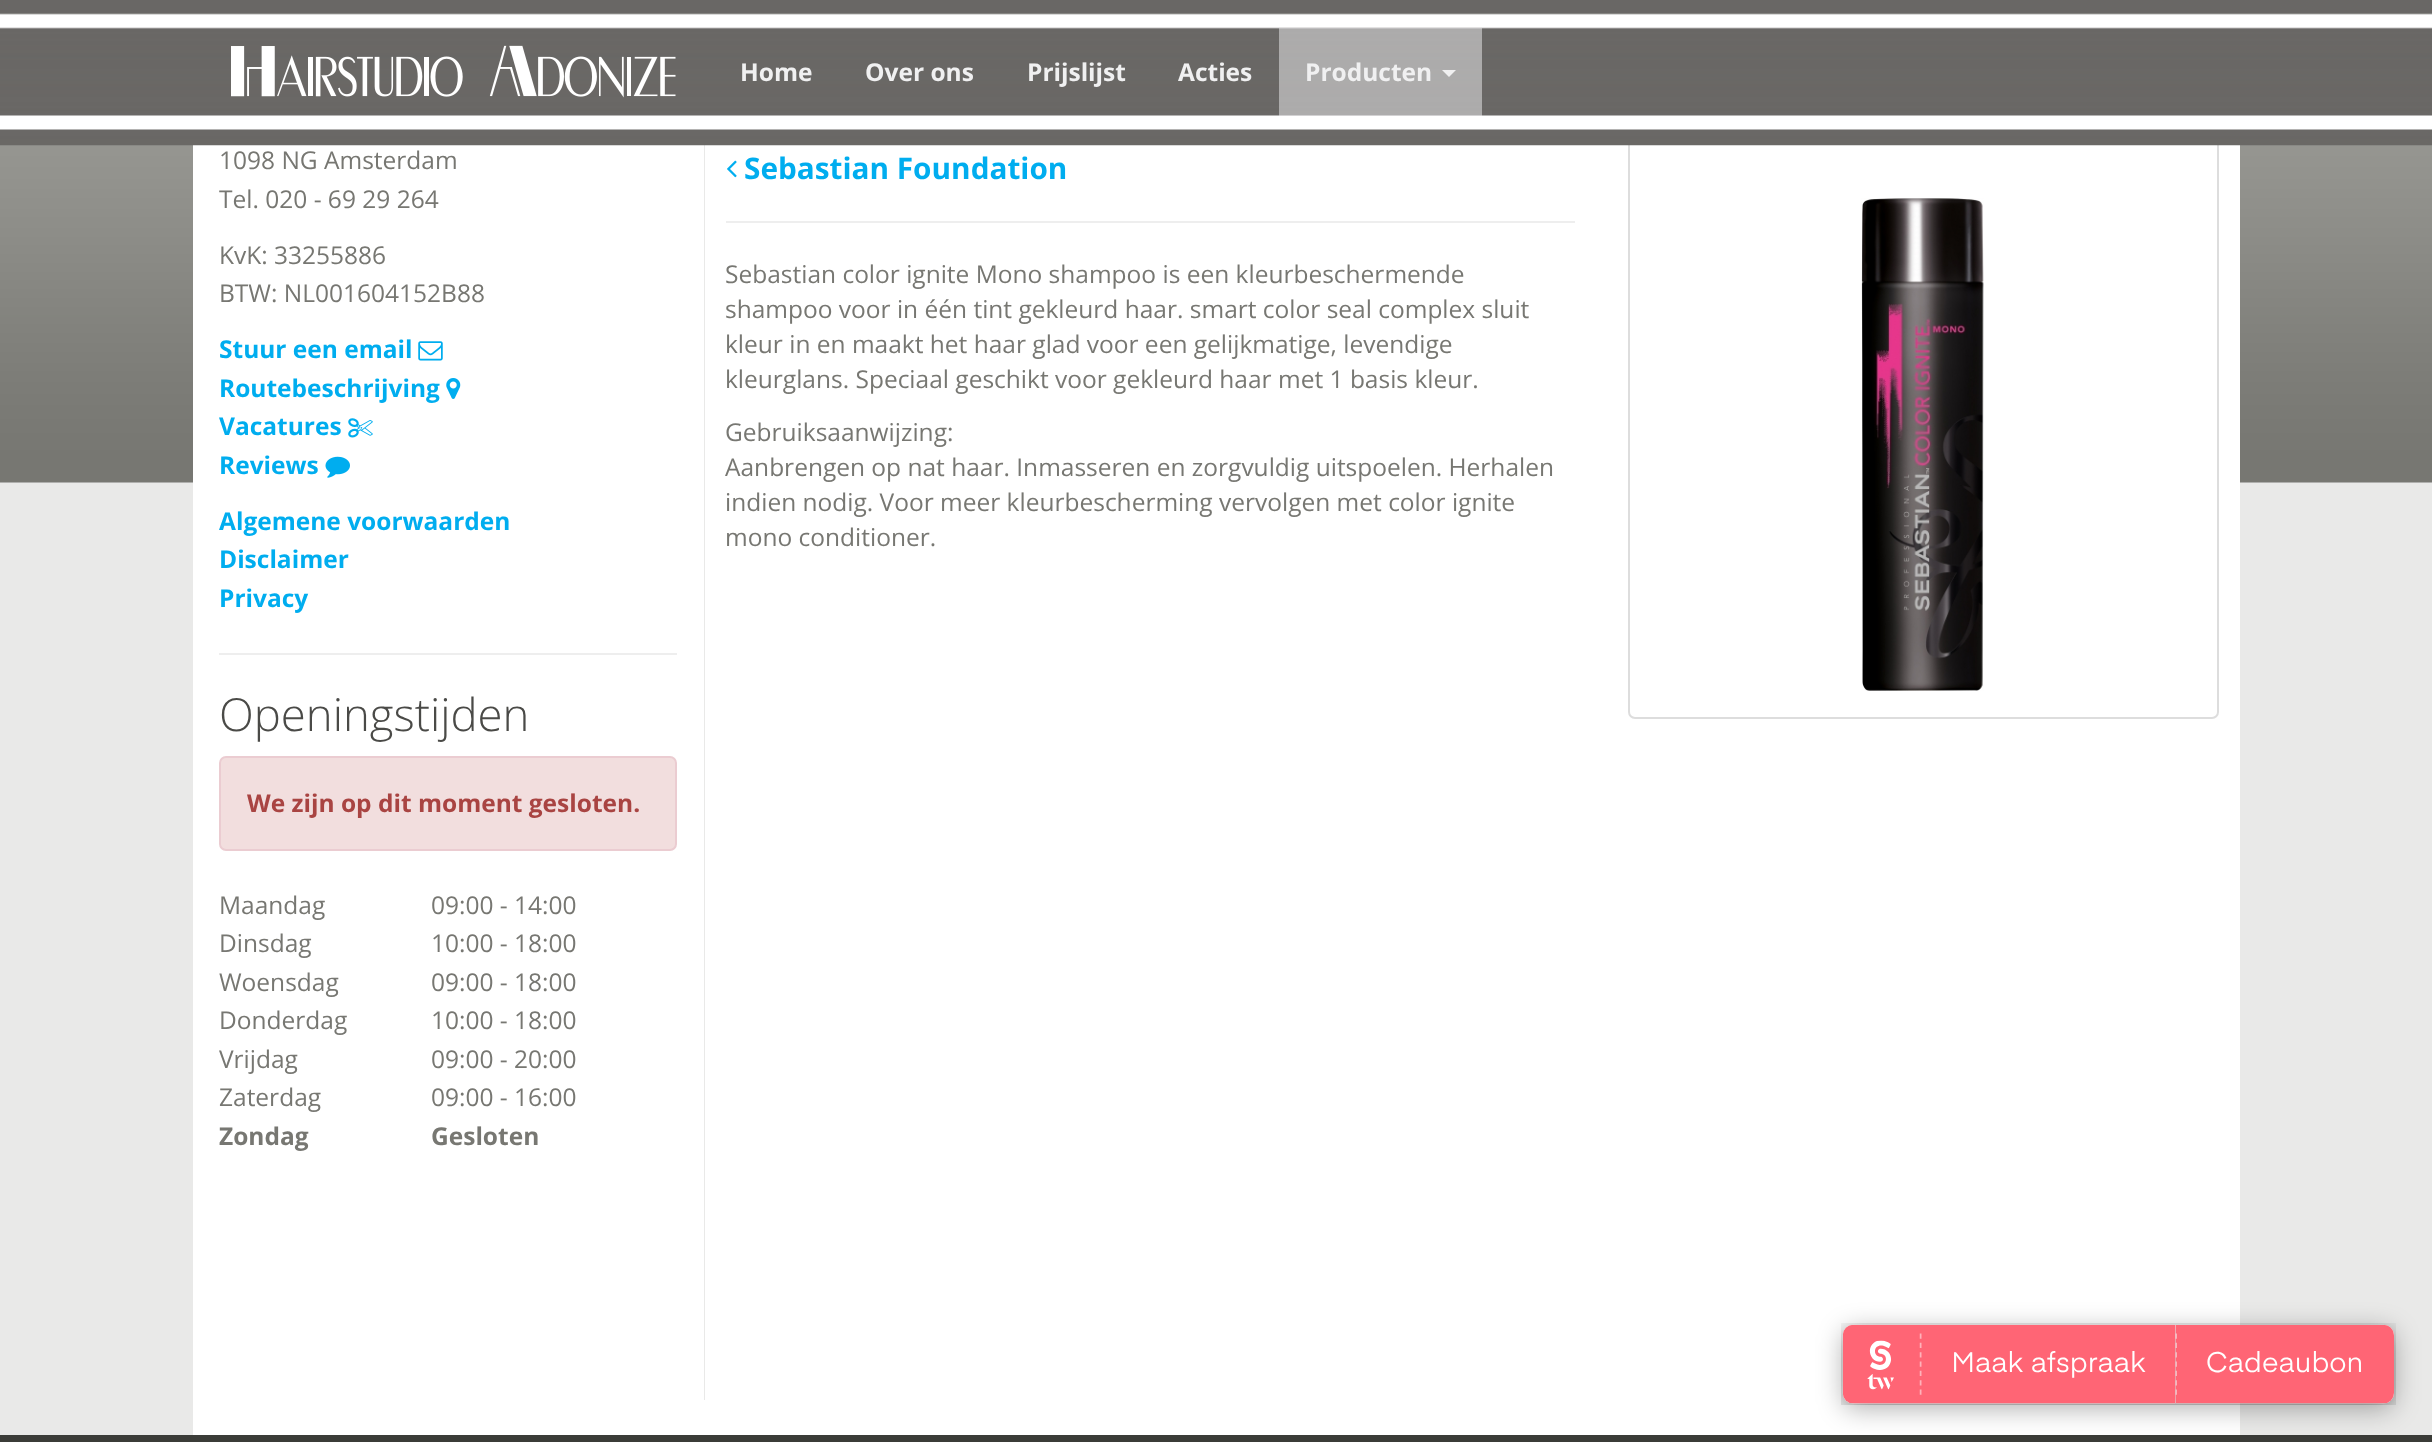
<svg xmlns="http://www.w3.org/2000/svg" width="2432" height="1442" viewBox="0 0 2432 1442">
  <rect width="100%" height="100%" fill="#e9e9e8"/>
  <path d="M0 0h2432v13H0z" fill="#696765"/>
  <image x="0" y="145" width="2432" height="338" href="img/3.png"/>
  <path d="M193 145h2047v1290H193z" fill="#fff"/>
  <path d="M704 145h1v1255H704z" fill="#e9e9e8"/>
  <rect x="1629" y="129" width="589" height="589" rx="6" fill="none" stroke="#ddd" stroke-width="2"/>
  <image x="0" y="13" width="2432" height="133" href="img/1.png"/>
  <image x="231" y="45" width="445" height="53" href="img/2.png"/>
  <path d="M1279 28h203v88H1279z" fill="#f0f0f180"/>
  <path d="M1442 70H1456L1449 77Z" fill="#f0f0f1"/>
  <image x="418" y="341" width="25" height="20" href="img/4.png"/>
  <image x="446" y="378" width="15" height="21" href="img/5.png"/>
  <image x="348" y="418" width="25" height="20" href="img/6.png"/>
  <image x="325" y="456" width="25" height="22" href="img/7.png"/>
  <path d="M219 653h458v2H219z" fill="#eee"/>
  <rect x="220" y="757" width="456" height="93" rx="6" fill="#f2dede" stroke="#ebccd1" stroke-width="2"/>
  <image x="727" y="160" width="10" height="18" href="img/8.png"/>
  <path d="M726 221h849v2H726z" fill="#eee"/>
  <image x="1861" y="198" width="123" height="493" href="img/9.png"/>
  <path d="M0 1435h2432v7H0z" fill="#3b3c38"/>
  <rect x="1843" y="1330" width="551" height="79" rx="11" fill="#0000004d" filter="blur(13px)"/>
  <image x="1841" y="1323" width="555" height="82" href="img/10.png"/>
  <image x="2175" y="1325" width="219" height="79" href="img/11.png"/>
  <g font-family="Open Sans" font-size="24.5" font-weight="bold" fill="#f0f0f1">
    <text x="740" y="81">Home</text>
    <text x="865" y="81">Over ons</text>
    <text x="1027" y="81">Prijslijst</text>
    <text x="1178" y="81">Acties</text>
    <text x="1305" y="81">Producten</text>
  </g>
  <g font-family="Open Sans" font-size="24.5" fill="#777772">
    <text x="219" y="169">1098 NG Amsterdam</text>
    <text x="219" y="208">Tel. 020 - 69 29 264</text>
    <text x="219" y="264">KvK: 33255886</text>
    <text x="219" y="302">BTW: NL001604152B88</text>
  </g>
  <g font-family="Open Sans" font-size="24.5" font-weight="bold" fill="#00adef">
    <text x="219" y="358">Stuur een email</text>
    <text x="219" y="397">Routebeschrijving</text>
    <text x="219" y="435">Vacatures</text>
    <text x="219" y="474">Reviews</text>
    <text x="219" y="530">Algemene voorwaarden</text>
    <text x="219" y="568">Disclaimer</text>
    <text x="219" y="607">Privacy</text>
  </g>
  <text x="219" y="731" font-family="Open Sans" font-size="45.5" font-weight="300" fill="#4a4a47">Openingstijden</text>
  <text x="247" y="812" font-family="Open Sans" font-size="24.5" font-weight="bold" fill="#a94442">We zijn op dit moment gesloten.</text>
  <g font-family="Open Sans" font-size="24.5" fill="#777772">
    <text x="219" y="914">Maandag</text>
    <text x="431" y="914">09:00 - 14:00</text>
    <text x="219" y="952">Dinsdag</text>
    <text x="431" y="952">10:00 - 18:00</text>
    <text x="219" y="991">Woensdag</text>
    <text x="431" y="991">09:00 - 18:00</text>
    <text x="219" y="1029">Donderdag</text>
    <text x="431" y="1029">10:00 - 18:00</text>
    <text x="219" y="1068">Vrijdag</text>
    <text x="431" y="1068">09:00 - 20:00</text>
    <text x="219" y="1106">Zaterdag</text>
    <text x="431" y="1106">09:00 - 16:00</text>
  </g>
  <g font-family="Open Sans" font-size="24.5" font-weight="bold" fill="#777772">
    <text x="219" y="1145">Zondag</text>
    <text x="431" y="1145">Gesloten</text>
  </g>
  <text x="744" y="179" font-family="Open Sans" font-size="29.75" font-weight="bold" fill="#00adef">Sebastian Foundation</text>
  <g font-family="Open Sans" font-size="24.5" fill="#777772">
    <text x="725" y="283">Sebastian color ignite Mono shampoo is een kleurbeschermende</text>
    <text x="725" y="318">shampoo voor in één tint gekleurd haar. smart color seal complex sluit</text>
    <text x="725" y="353">kleur in en maakt het haar glad voor een gelijkmatige, levendige</text>
    <text x="725" y="388">kleurglans. Speciaal geschikt voor gekleurd haar met 1 basis kleur.</text>
    <text x="725" y="441">Gebruiksaanwijzing:</text>
    <text x="725" y="476">Aanbrengen op nat haar. Inmasseren en zorgvuldig uitspoelen. Herhalen</text>
    <text x="725" y="511">indien nodig. Voor meer kleurbescherming vervolgen met color ignite</text>
    <text x="725" y="546">mono conditioner.</text>
  </g>
</svg>
